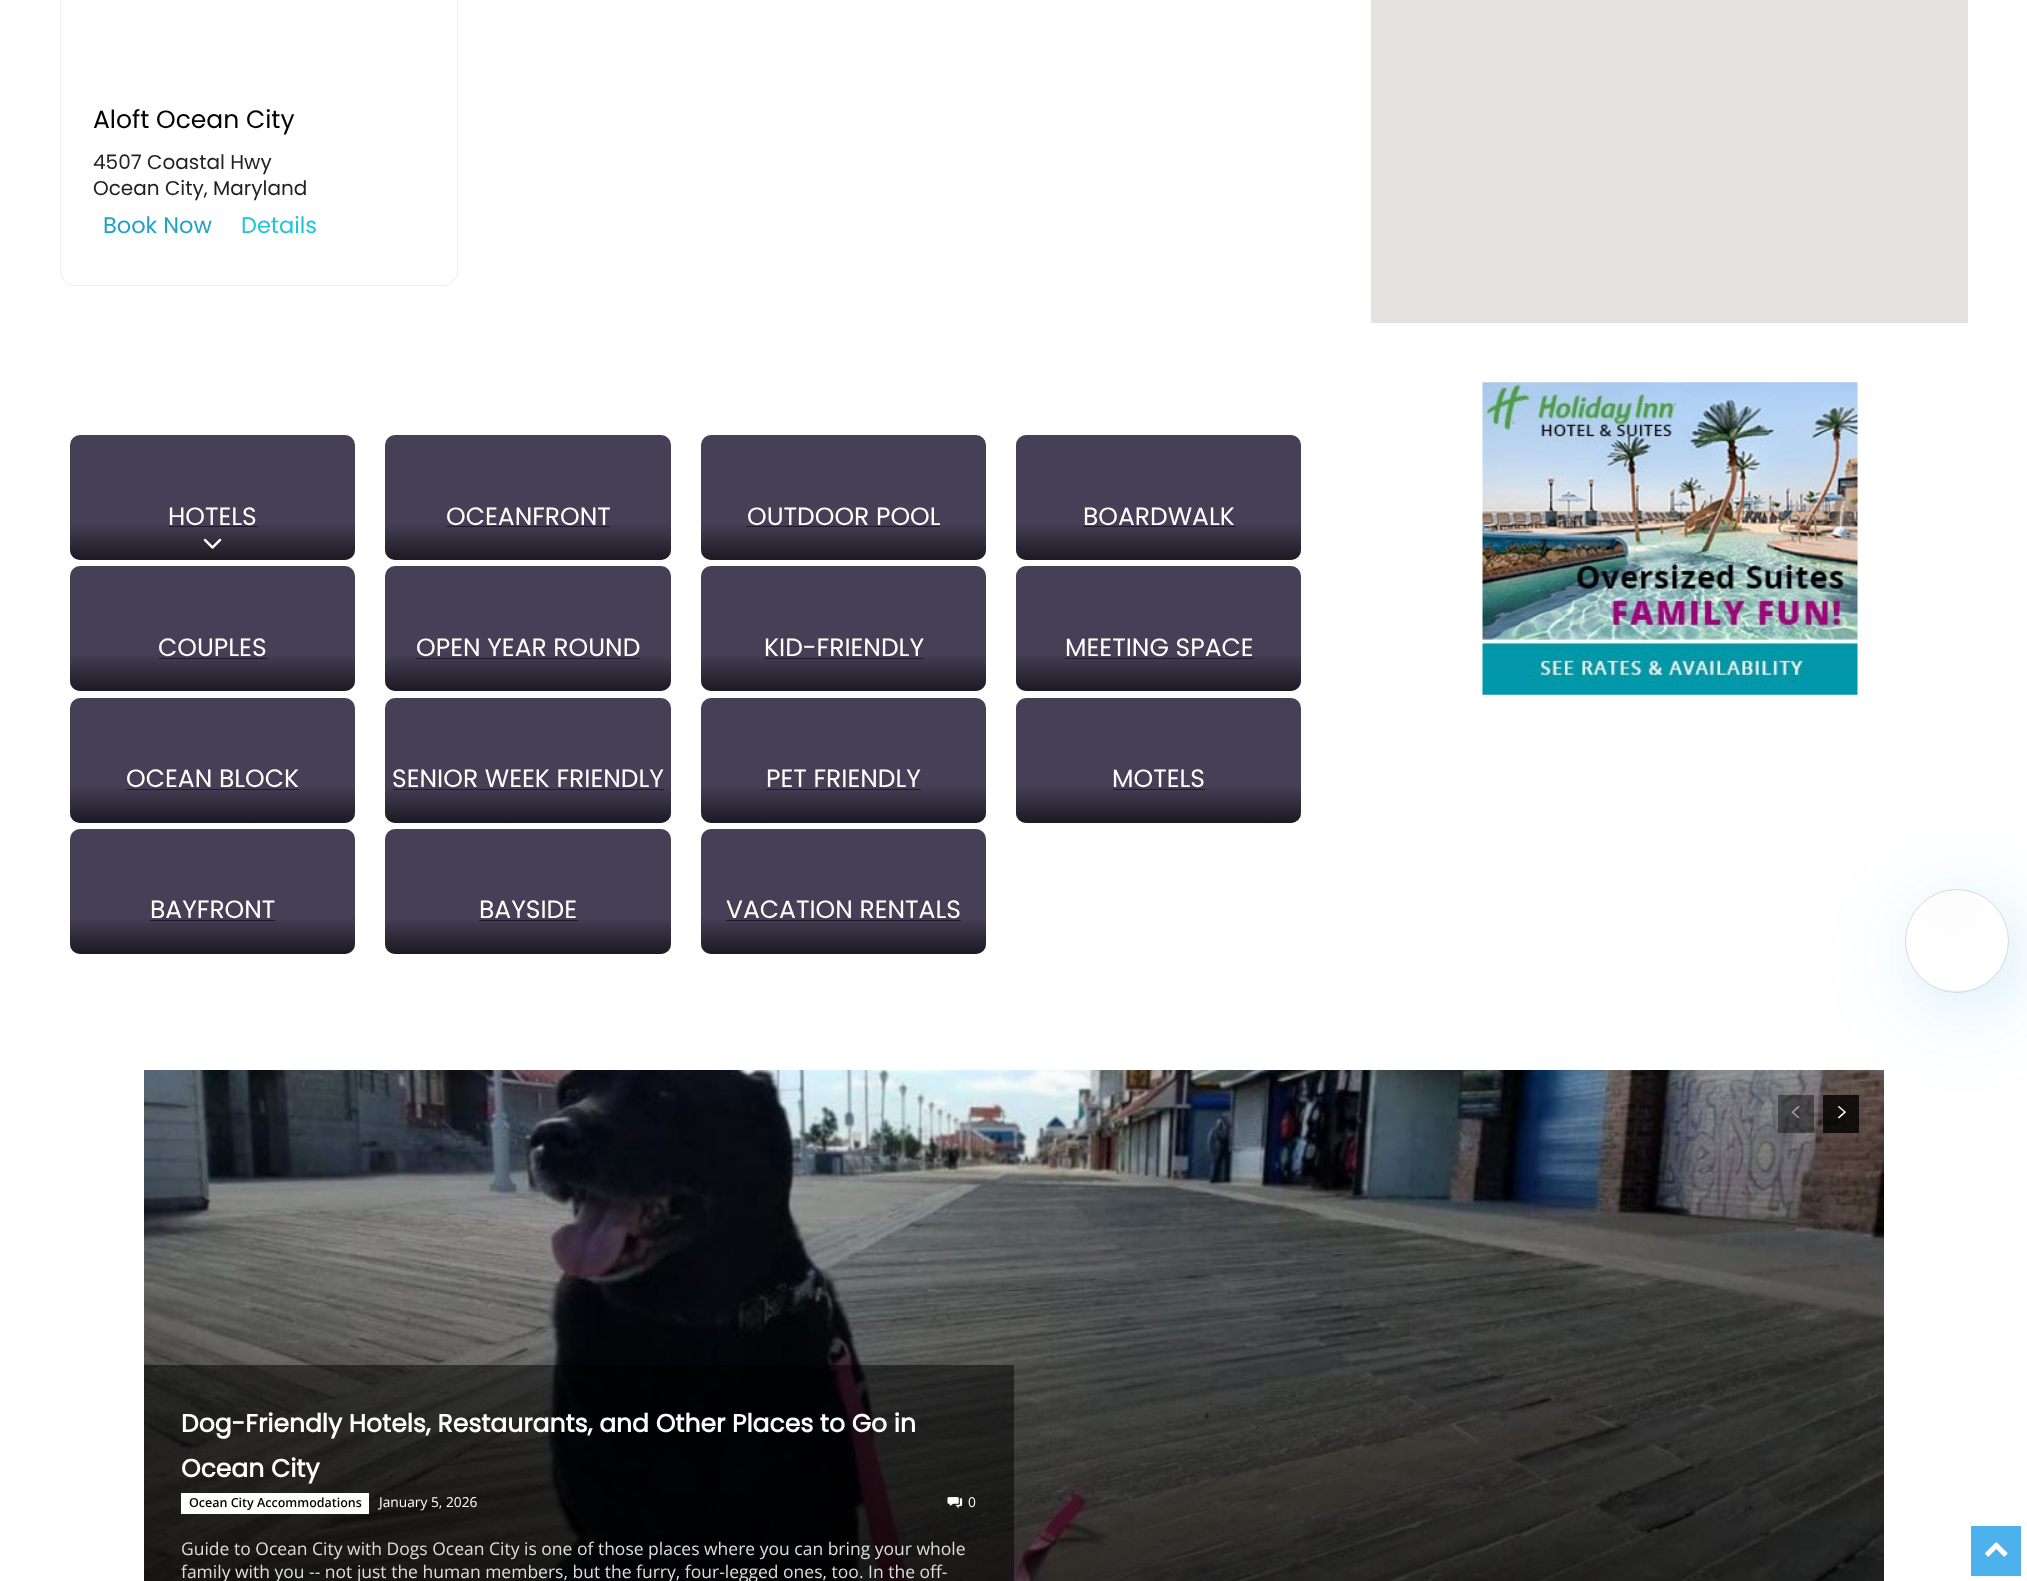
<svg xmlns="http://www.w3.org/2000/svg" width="2027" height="1581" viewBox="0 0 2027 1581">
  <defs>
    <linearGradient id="g1" gradientUnits="userSpaceOnUse" x1="213" y1="560" x2="213" y2="435"><stop offset="0" stop-color="#000" stop-opacity="0.6"/><stop offset="0.3" stop-color="#000" stop-opacity="0"/></linearGradient>
    <linearGradient id="g2" gradientUnits="userSpaceOnUse" x1="528" y1="560" x2="528" y2="435"><stop offset="0" stop-color="#000" stop-opacity="0.6"/><stop offset="0.3" stop-color="#000" stop-opacity="0"/></linearGradient>
    <linearGradient id="g3" gradientUnits="userSpaceOnUse" x1="844" y1="560" x2="844" y2="435"><stop offset="0" stop-color="#000" stop-opacity="0.6"/><stop offset="0.3" stop-color="#000" stop-opacity="0"/></linearGradient>
    <linearGradient id="g4" gradientUnits="userSpaceOnUse" x1="1159" y1="560" x2="1159" y2="435"><stop offset="0" stop-color="#000" stop-opacity="0.6"/><stop offset="0.3" stop-color="#000" stop-opacity="0"/></linearGradient>
    <linearGradient id="g5" gradientUnits="userSpaceOnUse" x1="213" y1="691" x2="213" y2="566"><stop offset="0" stop-color="#000" stop-opacity="0.6"/><stop offset="0.3" stop-color="#000" stop-opacity="0"/></linearGradient>
    <linearGradient id="g6" gradientUnits="userSpaceOnUse" x1="528" y1="691" x2="528" y2="566"><stop offset="0" stop-color="#000" stop-opacity="0.6"/><stop offset="0.3" stop-color="#000" stop-opacity="0"/></linearGradient>
    <linearGradient id="g7" gradientUnits="userSpaceOnUse" x1="844" y1="691" x2="844" y2="566"><stop offset="0" stop-color="#000" stop-opacity="0.6"/><stop offset="0.3" stop-color="#000" stop-opacity="0"/></linearGradient>
    <linearGradient id="g8" gradientUnits="userSpaceOnUse" x1="1159" y1="691" x2="1159" y2="566"><stop offset="0" stop-color="#000" stop-opacity="0.6"/><stop offset="0.3" stop-color="#000" stop-opacity="0"/></linearGradient>
    <linearGradient id="g9" gradientUnits="userSpaceOnUse" x1="213" y1="823" x2="213" y2="698"><stop offset="0" stop-color="#000" stop-opacity="0.6"/><stop offset="0.3" stop-color="#000" stop-opacity="0"/></linearGradient>
    <linearGradient id="g10" gradientUnits="userSpaceOnUse" x1="528" y1="823" x2="528" y2="698"><stop offset="0" stop-color="#000" stop-opacity="0.6"/><stop offset="0.3" stop-color="#000" stop-opacity="0"/></linearGradient>
    <linearGradient id="g11" gradientUnits="userSpaceOnUse" x1="844" y1="823" x2="844" y2="698"><stop offset="0" stop-color="#000" stop-opacity="0.6"/><stop offset="0.3" stop-color="#000" stop-opacity="0"/></linearGradient>
    <linearGradient id="g12" gradientUnits="userSpaceOnUse" x1="1159" y1="823" x2="1159" y2="698"><stop offset="0" stop-color="#000" stop-opacity="0.6"/><stop offset="0.3" stop-color="#000" stop-opacity="0"/></linearGradient>
    <linearGradient id="g13" gradientUnits="userSpaceOnUse" x1="213" y1="954" x2="213" y2="829"><stop offset="0" stop-color="#000" stop-opacity="0.6"/><stop offset="0.3" stop-color="#000" stop-opacity="0"/></linearGradient>
    <linearGradient id="g14" gradientUnits="userSpaceOnUse" x1="528" y1="954" x2="528" y2="829"><stop offset="0" stop-color="#000" stop-opacity="0.6"/><stop offset="0.3" stop-color="#000" stop-opacity="0"/></linearGradient>
    <linearGradient id="g15" gradientUnits="userSpaceOnUse" x1="844" y1="954" x2="844" y2="829"><stop offset="0" stop-color="#000" stop-opacity="0.6"/><stop offset="0.3" stop-color="#000" stop-opacity="0"/></linearGradient>
    <clipPath id="clip1"><path d="M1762 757H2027V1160H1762ZM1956.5 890H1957.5C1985.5 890 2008 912.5 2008 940.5C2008 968.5 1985.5 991 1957.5 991H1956.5C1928.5 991 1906 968.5 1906 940.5C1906 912.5 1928.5 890 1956.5 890Z" clip-rule="evenodd"/></clipPath>
    <clipPath id="clip2"><path d="M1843 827H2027V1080H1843ZM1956.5 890H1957.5C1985.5 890 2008 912.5 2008 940.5C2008 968.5 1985.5 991 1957.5 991H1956.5C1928.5 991 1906 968.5 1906 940.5C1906 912.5 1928.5 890 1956.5 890Z" clip-rule="evenodd"/></clipPath>
    <clipPath id="clip3"><rect x="1906" y="890" width="102" height="101" rx="50.5"/></clipPath>
    <radialGradient id="g16" gradientUnits="userSpaceOnUse" cx="0" cy="0" r="1" gradientTransform="matrix(73 0 0 152 1951 833)"><stop offset="0" stop-color="#f2f2f2" stop-opacity="0.33"/><stop offset="1" stop-color="#f2f2f2" stop-opacity="0"/></radialGradient>
    <radialGradient id="g17" gradientUnits="userSpaceOnUse" cx="0" cy="0" r="1" gradientTransform="matrix(73 0 0 152 1951 932)"><stop offset="0" stop-color="#f2f2f2" stop-opacity="0.33"/><stop offset="1" stop-color="#f2f2f2" stop-opacity="0"/></radialGradient>
  </defs>
  <rect width="100%" height="100%" fill="#fff"/>
  <rect x="60.5" y="-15.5" width="397" height="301" rx="14.5" fill="none" stroke="#efecf3"/>
  <rect x="70" y="435" width="285" height="125" rx="10" fill="#454056"/>
  <rect x="70" y="435" width="285" height="125" rx="10" fill="url(#g1)"/>
  <path d="M169 526h89v1H169z" fill="#1f1b2d"/>
  <image x="203" y="538" width="19" height="11" href="img/1.png"/>
  <rect x="385" y="435" width="286" height="125" rx="10" fill="#454056"/>
  <rect x="385" y="435" width="286" height="125" rx="10" fill="url(#g2)"/>
  <path d="M446 526h164v1H446z" fill="#1f1b2d"/>
  <rect x="701" y="435" width="285" height="125" rx="10" fill="#454056"/>
  <rect x="701" y="435" width="285" height="125" rx="10" fill="url(#g3)"/>
  <path d="M746 526h194v1H746z" fill="#1f1b2d"/>
  <rect x="1016" y="435" width="285" height="125" rx="10" fill="#454056"/>
  <rect x="1016" y="435" width="285" height="125" rx="10" fill="url(#g4)"/>
  <path d="M1083 526h152v1H1083z" fill="#1f1b2d"/>
  <rect x="70" y="566" width="285" height="125" rx="10" fill="#454056"/>
  <rect x="70" y="566" width="285" height="125" rx="10" fill="url(#g5)"/>
  <path d="M159 658h109v1H159z" fill="#1f1b2d"/>
  <rect x="385" y="566" width="286" height="125" rx="10" fill="#454056"/>
  <rect x="385" y="566" width="286" height="125" rx="10" fill="url(#g6)"/>
  <path d="M416 658h224v1H416z" fill="#1f1b2d"/>
  <rect x="701" y="566" width="285" height="125" rx="10" fill="#454056"/>
  <rect x="701" y="566" width="285" height="125" rx="10" fill="url(#g7)"/>
  <path d="M764 658h160v1H764z" fill="#1f1b2d"/>
  <rect x="1016" y="566" width="285" height="125" rx="10" fill="#454056"/>
  <rect x="1016" y="566" width="285" height="125" rx="10" fill="url(#g8)"/>
  <path d="M1065 658h189v1H1065z" fill="#1f1b2d"/>
  <rect x="70" y="698" width="285" height="125" rx="10" fill="#454056"/>
  <rect x="70" y="698" width="285" height="125" rx="10" fill="url(#g9)"/>
  <path d="M126 789h173v1H126z" fill="#1f1b2d"/>
  <rect x="385" y="698" width="286" height="125" rx="10" fill="#454056"/>
  <rect x="385" y="698" width="286" height="125" rx="10" fill="url(#g10)"/>
  <path d="M393 789h271v1H393z" fill="#1f1b2d"/>
  <rect x="701" y="698" width="285" height="125" rx="10" fill="#454056"/>
  <rect x="701" y="698" width="285" height="125" rx="10" fill="url(#g11)"/>
  <path d="M766 789h155v1H766z" fill="#1f1b2d"/>
  <rect x="1016" y="698" width="285" height="125" rx="10" fill="#454056"/>
  <rect x="1016" y="698" width="285" height="125" rx="10" fill="url(#g12)"/>
  <path d="M1113 789h92v1H1113z" fill="#1f1b2d"/>
  <rect x="70" y="829" width="285" height="125" rx="10" fill="#454056"/>
  <rect x="70" y="829" width="285" height="125" rx="10" fill="url(#g13)"/>
  <path d="M150 920h125v1H150z" fill="#1f1b2d"/>
  <rect x="385" y="829" width="286" height="125" rx="10" fill="#454056"/>
  <rect x="385" y="829" width="286" height="125" rx="10" fill="url(#g14)"/>
  <path d="M479 920h99v1H479z" fill="#1f1b2d"/>
  <rect x="701" y="829" width="285" height="125" rx="10" fill="#454056"/>
  <rect x="701" y="829" width="285" height="125" rx="10" fill="url(#g15)"/>
  <path d="M726 920h235v1H726z" fill="#1f1b2d"/>
  <path d="M1371 0h597v323H1371z" fill="#e5e3df"/>
  <image x="1482" y="382" width="376" height="313" href="img/2.png"/>
  <image x="144" y="1070" width="1740" height="511" href="img/5.png"/>
  <path d="M1778 1095h36v38H1778z" fill="#00000066"/>
  <image x="1791" y="1105" width="9" height="14" href="img/3.png"/>
  <path d="M1823 1095h36v38H1823z" fill="#000000cc"/>
  <image x="1838" y="1106" width="8" height="13" href="img/4.png"/>
  <path d="M144 1365h870v216H144z" fill="#00000080"/>
  <path d="M181 1493h188v21H181z" fill="#fff"/>
  <image x="947" y="1497" width="16" height="12" href="img/6.png"/>
  <g clip-path="url(#clip1)">
    <rect x="1913" y="908" width="101" height="101" rx="50.5" fill="#009cde1f" filter="blur(50px)"/>
  </g>
  <g clip-path="url(#clip2)">
    <rect x="1919" y="903" width="101" height="101" rx="50.5" fill="#009cde14" filter="blur(25px)"/>
  </g>
  <g clip-path="url(#clip3)">
    <path d="M1908 891h96v84H1908z" fill="url(#g16)"/>
    <path d="M1947 990h20v1H1947z" fill="url(#g17)"/>
  </g>
  <circle cx="1957" cy="941" r="51.5" fill="none" stroke="#dbdade"/>
  <path d="M1971 1526h50v50H1971z" fill="#4db2ec"/>
  <image x="1985" y="1542" width="23" height="15" href="img/7.png"/>
  <text x="93" y="128" font-family="Poppins" font-size="25" fill="#000">Aloft Ocean City</text>
  <g font-family="Poppins" font-size="20" fill="#222">
    <text x="93" y="169">4507 Coastal Hwy</text>
    <text x="93" y="195">Ocean City, Maryland</text>
  </g>
  <text x="103" y="233" font-family="Poppins" font-size="22.5" fill="#1fa3c4">Book Now</text>
  <text x="241" y="233" font-family="Poppins" font-size="22.5" fill="#1cc5d8">Details</text>
  <g font-family="Poppins" font-size="25" fill="#fff">
    <text x="168" y="525">HOTELS</text>
    <text x="446" y="525">OCEANFRONT</text>
    <text x="747" y="525">OUTDOOR POOL</text>
    <text x="1083" y="525">BOARDWALK</text>
    <text x="158" y="656">COUPLES</text>
    <text x="416" y="656">OPEN YEAR ROUND</text>
    <text x="764" y="656">KID-FRIENDLY</text>
    <text x="1065" y="656">MEETING SPACE</text>
    <text x="126" y="787">OCEAN BLOCK</text>
    <text x="392" y="787">SENIOR WEEK FRIENDLY</text>
    <text x="766" y="787">PET FRIENDLY</text>
    <text x="1112" y="787">MOTELS</text>
    <text x="150" y="918">BAYFRONT</text>
    <text x="479" y="918">BAYSIDE</text>
    <text x="726" y="918">VACATION RENTALS</text>
  </g>
  <g font-family="Poppins" font-size="25" font-weight="bold" fill="#fff">
    <text x="181" y="1432">Dog-Friendly Hotels, Restaurants, and Other Places to Go in</text>
    <text x="181" y="1477">Ocean City</text>
  </g>
  <text x="189" y="1507" font-family="Open Sans" font-size="12.5" font-weight="600" fill="#000">Ocean City Accommodations</text>
  <g font-family="Open Sans" font-size="13.75" fill="#fff">
    <text x="379" y="1507">January 5, 2026</text>
    <text x="968" y="1507">0</text>
  </g>
  <g font-family="Open Sans" font-size="17.5" fill="#ddd">
    <text x="181" y="1555">Guide to Ocean City with Dogs Ocean City is one of those places where you can bring your whole</text>
    <text x="181" y="1578">family with you -- not just the human members, but the furry, four-legged ones, too. In the off-</text>
  </g>
</svg>
